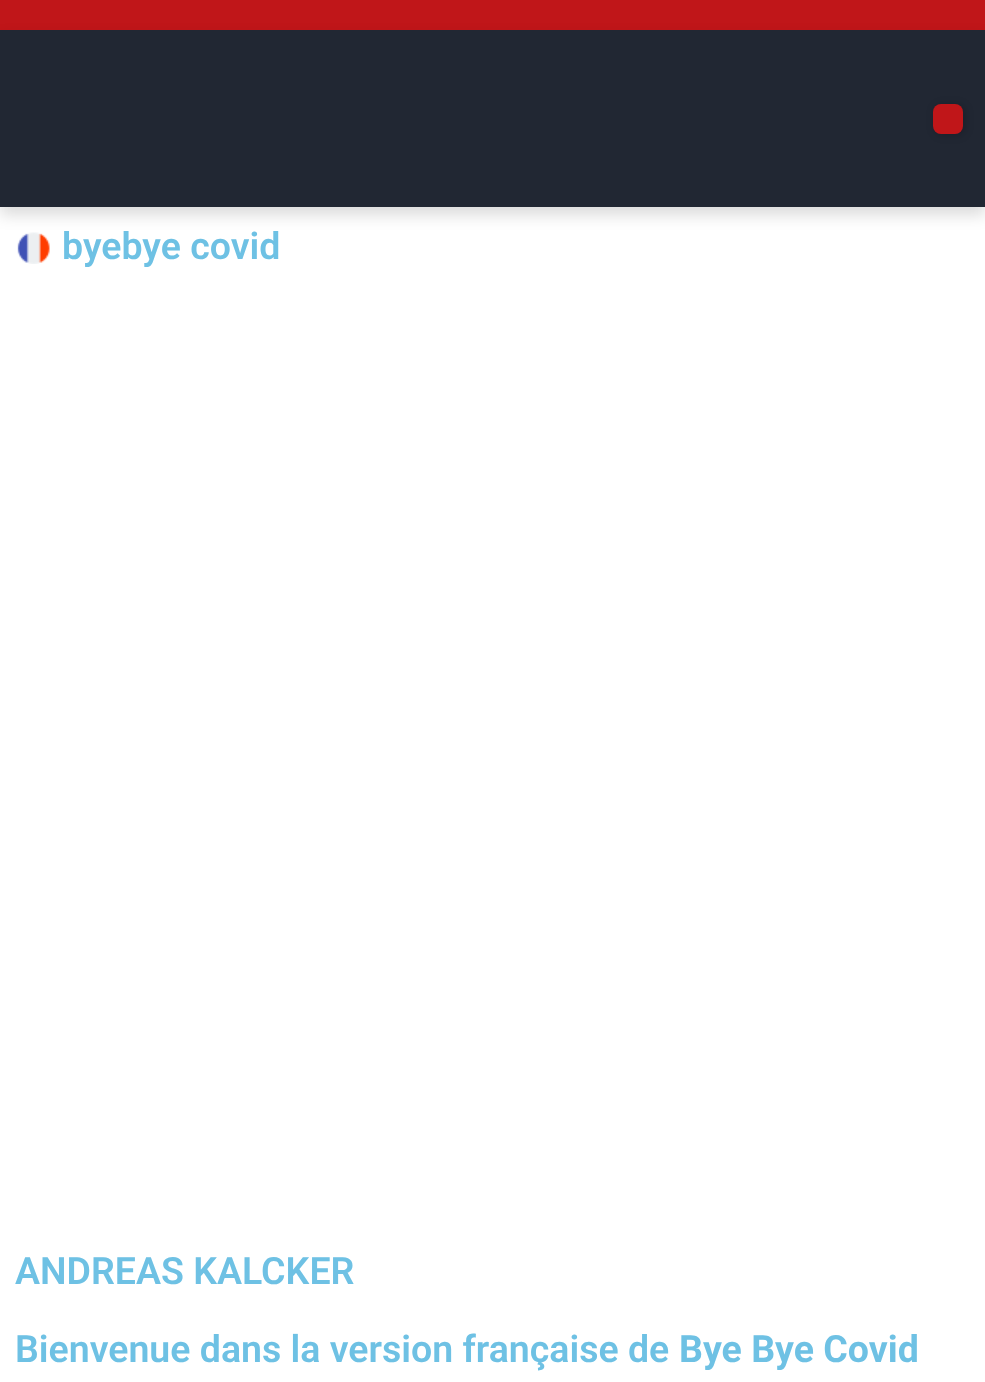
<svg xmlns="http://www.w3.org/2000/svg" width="985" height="1382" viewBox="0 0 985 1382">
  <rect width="100%" height="100%" fill="#fff"/>
  <path d="M0 0h985v30H0z" fill="#c01619"/>
  <path d="M0 38h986v177H0z" fill="#00000024" filter="blur(7.5px)"/>
  <path d="M0 30h985v177H0z" fill="#212733"/>
  <rect x="935" y="105" width="30" height="30" rx="8" fill="#00000033" filter="blur(4px)"/>
  <rect x="933" y="104" width="30" height="30" rx="8" fill="#c01619"/>
  <image x="17" y="232" width="33" height="32" href="img/1.png"/>
  <g font-family="Roboto" font-size="37.5" font-weight="600" fill="#6ec1e4">
    <text x="62" y="259">byebye covid</text>
    <text x="15" y="1284">ANDREAS KALCKER</text>
    <text x="15" y="1362">Bienvenue dans la version française de</text>
  </g>
  <text x="679" y="1362" font-family="Roboto" font-size="37.5" font-weight="bold" fill="#6ec1e4">Bye Bye Covid</text>
</svg>
